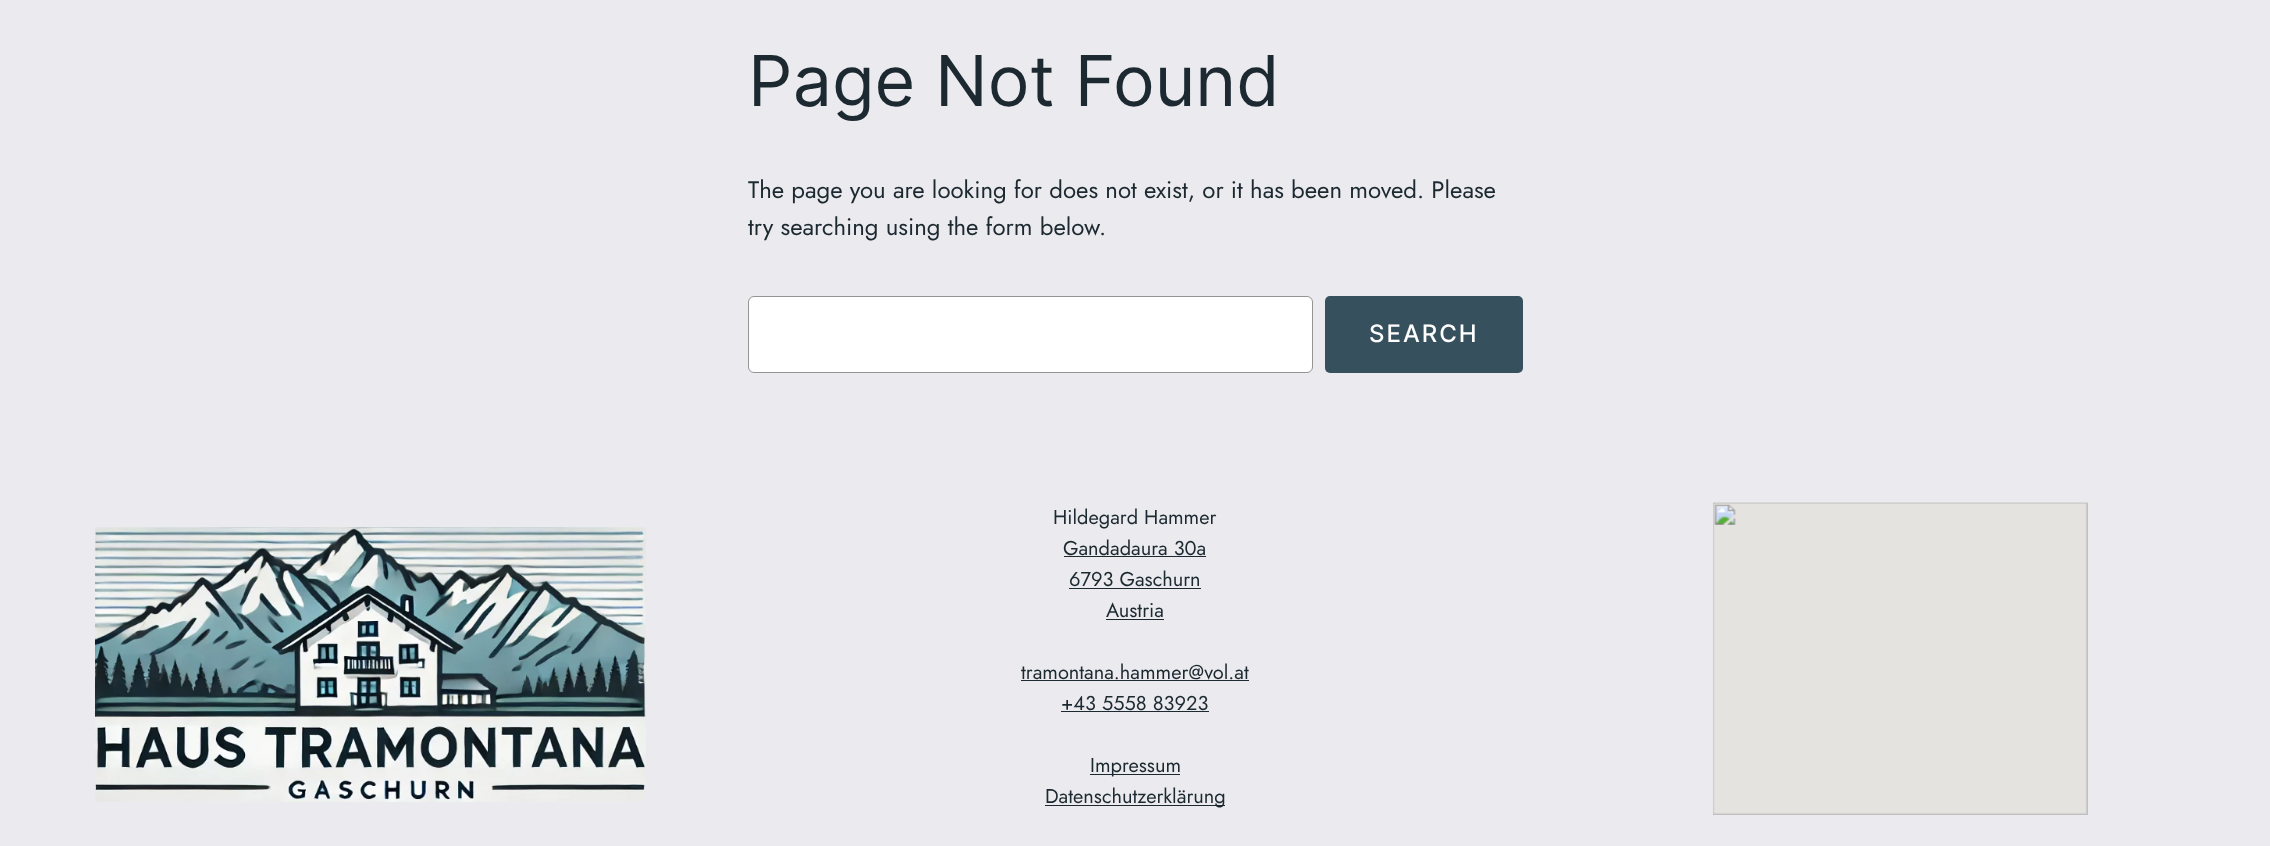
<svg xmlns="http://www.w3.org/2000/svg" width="2270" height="846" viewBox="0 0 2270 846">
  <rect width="100%" height="100%" fill="#ebebef"/>
  <rect x="748.5" y="296.5" width="564" height="76" rx="5.5" fill="#fff" stroke="#949494"/>
  <rect x="1325" y="296" width="198" height="77" rx="5" fill="#37505d"/>
  <image x="95" y="527" width="551" height="275" href="img/1.png"/>
  <path d="M1064 556h142v1H1064z" fill="#1c2930"/>
  <path d="M1069 588h132v1H1069z" fill="#1c2930"/>
  <path d="M1106 619h58v1H1106z" fill="#1c2930"/>
  <path d="M1021 680h228v1H1021z" fill="#1c2930"/>
  <path d="M1061 711h148v1H1061z" fill="#1c2930"/>
  <path d="M1090 774h90v1H1090z" fill="#1c2930"/>
  <path d="M1045 805h180v1H1045z" fill="#1c2930"/>
  <image x="1712" y="502" width="376" height="313" href="img/2.png"/>
  <text x="748" y="106" font-family="Inter" font-size="70" fill="#1c2930">Page Not Found</text>
  <g font-family="Jost" font-size="24" fill="#1c2930">
    <text x="748" y="198">The page you are looking for does not exist, or it has been moved. Please</text>
    <text x="748" y="235">try searching using the form below.</text>
  </g>
  <text x="1369" y="342" font-family="Inter" font-size="24" font-weight="500" letter-spacing="2" fill="#fff">SEARCH</text>
  <g font-family="Jost" font-size="20" fill="#1c2930">
    <text x="1053" y="524">Hildegard Hammer</text>
    <text x="1063" y="555">Gandadaura 30a</text>
    <text x="1069" y="586">6793 Gaschurn</text>
    <text x="1106" y="617">Austria</text>
    <text x="1021" y="679">tramontana.hammer@vol.at</text>
    <text x="1061" y="710">+43 5558 83923</text>
    <text x="1090" y="772">Impressum</text>
    <text x="1045" y="803">Datenschutzerklärung</text>
  </g>
</svg>
